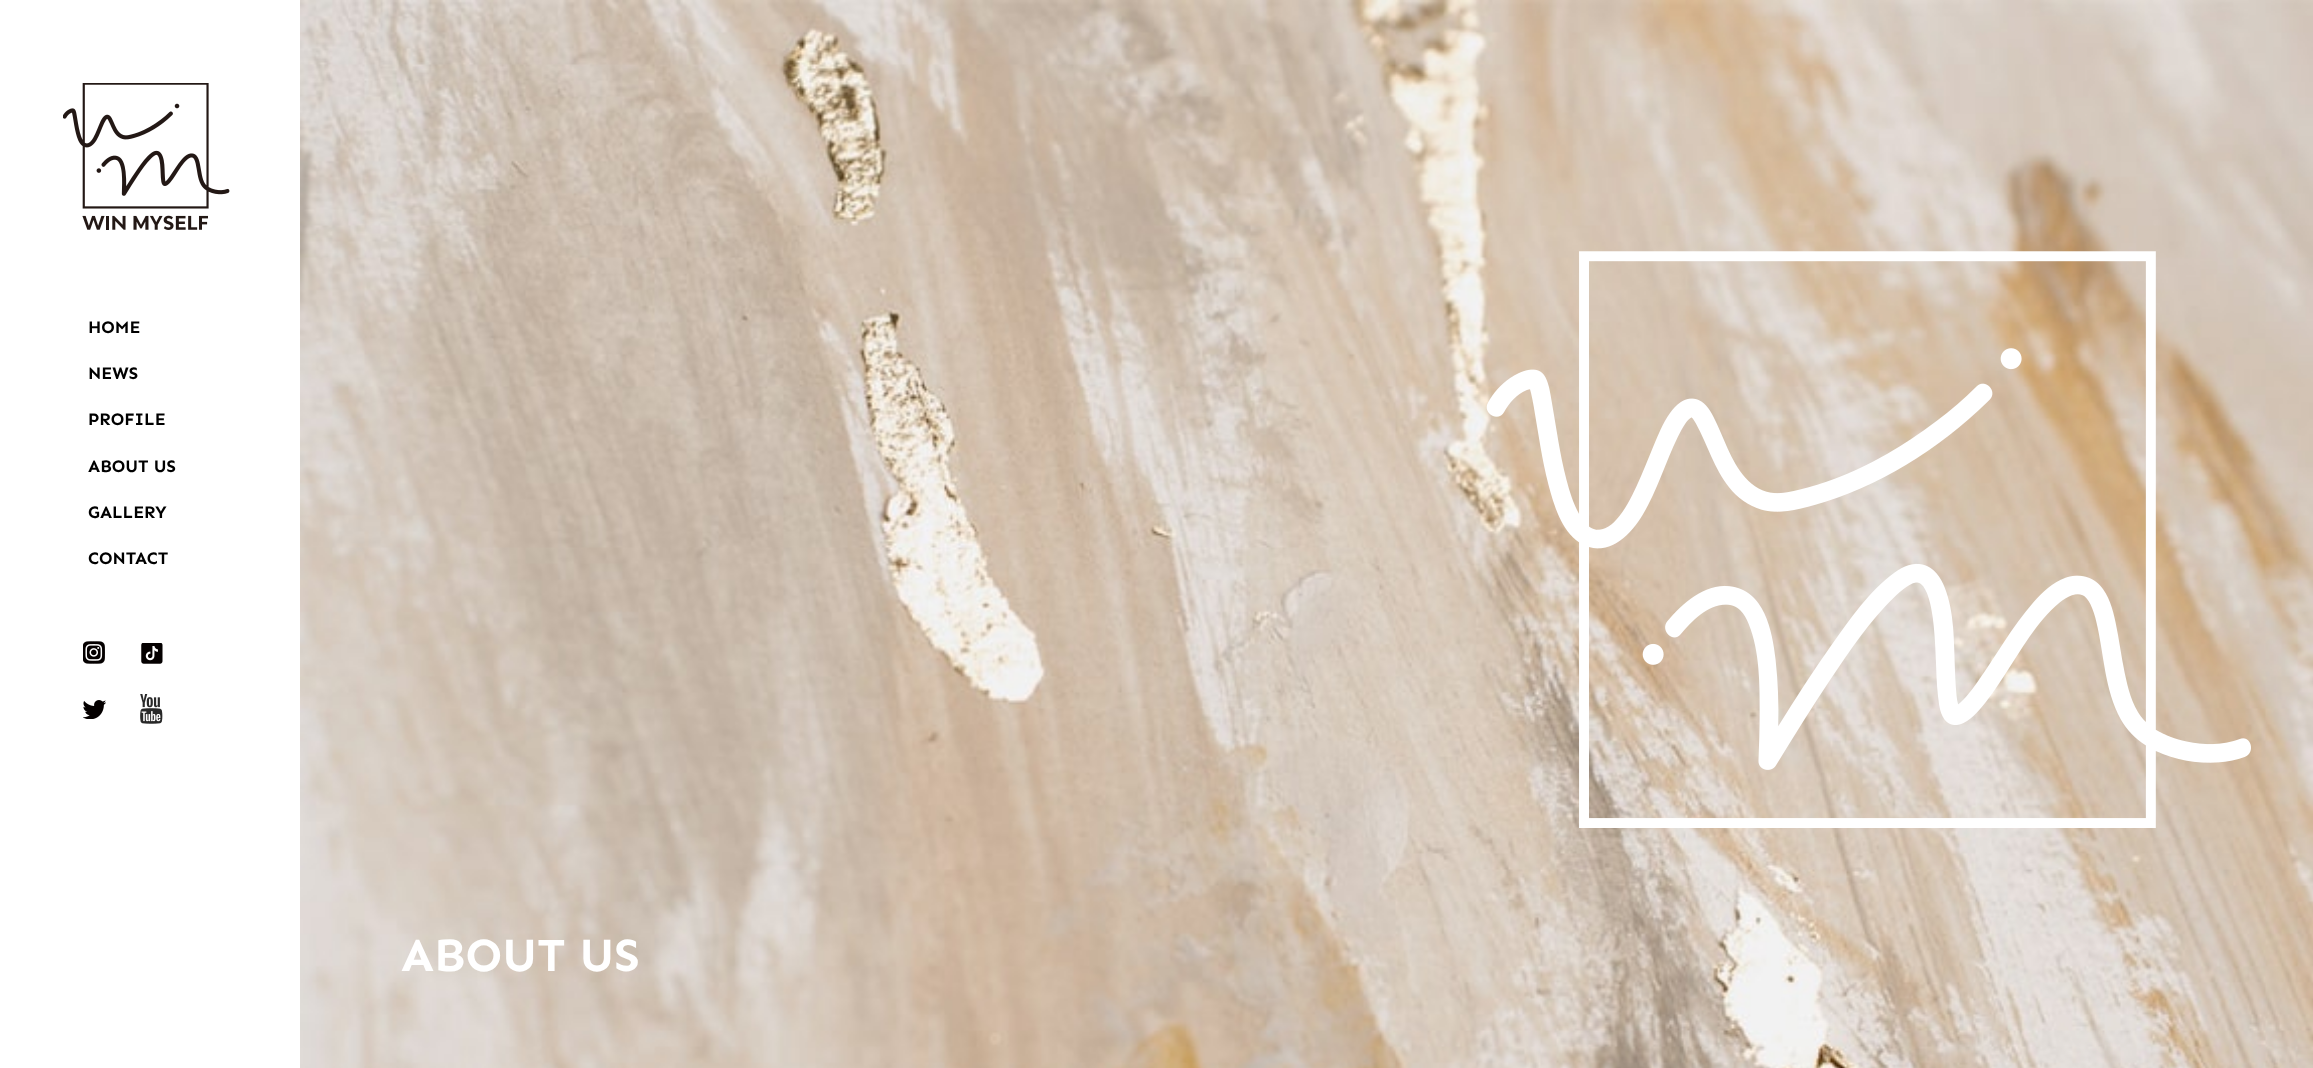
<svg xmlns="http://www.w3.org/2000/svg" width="2313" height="1068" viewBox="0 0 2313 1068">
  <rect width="100%" height="100%" fill="#fff"/>
  <image x="63" y="83" width="167" height="147" href="img/1.png"/>
  <image x="83" y="641" width="22" height="23" href="img/2.png"/>
  <image x="141" y="643" width="22" height="21" href="img/3.png"/>
  <image x="83" y="700" width="23" height="19" href="img/4.png"/>
  <image x="140" y="694" width="23" height="30" href="img/5.png"/>
  <image x="300" y="0" width="2013" height="1068" href="img/6.png"/>
  <image x="1486" y="251" width="765" height="577" href="img/7.png"/>
  <g font-family="Sen" font-size="17.5" font-weight="bold" fill="#000">
    <text x="88" y="333">HOME</text>
    <text x="88" y="379">NEWS</text>
    <text x="88" y="425">PROFILE</text>
    <text x="88" y="472">ABOUT US</text>
    <text x="88" y="518">GALLERY</text>
    <text x="88" y="564">CONTACT</text>
  </g>
  <text x="401" y="971" font-family="Sen" font-size="47.5" font-weight="bold" fill="#fff">ABOUT US</text>
</svg>
